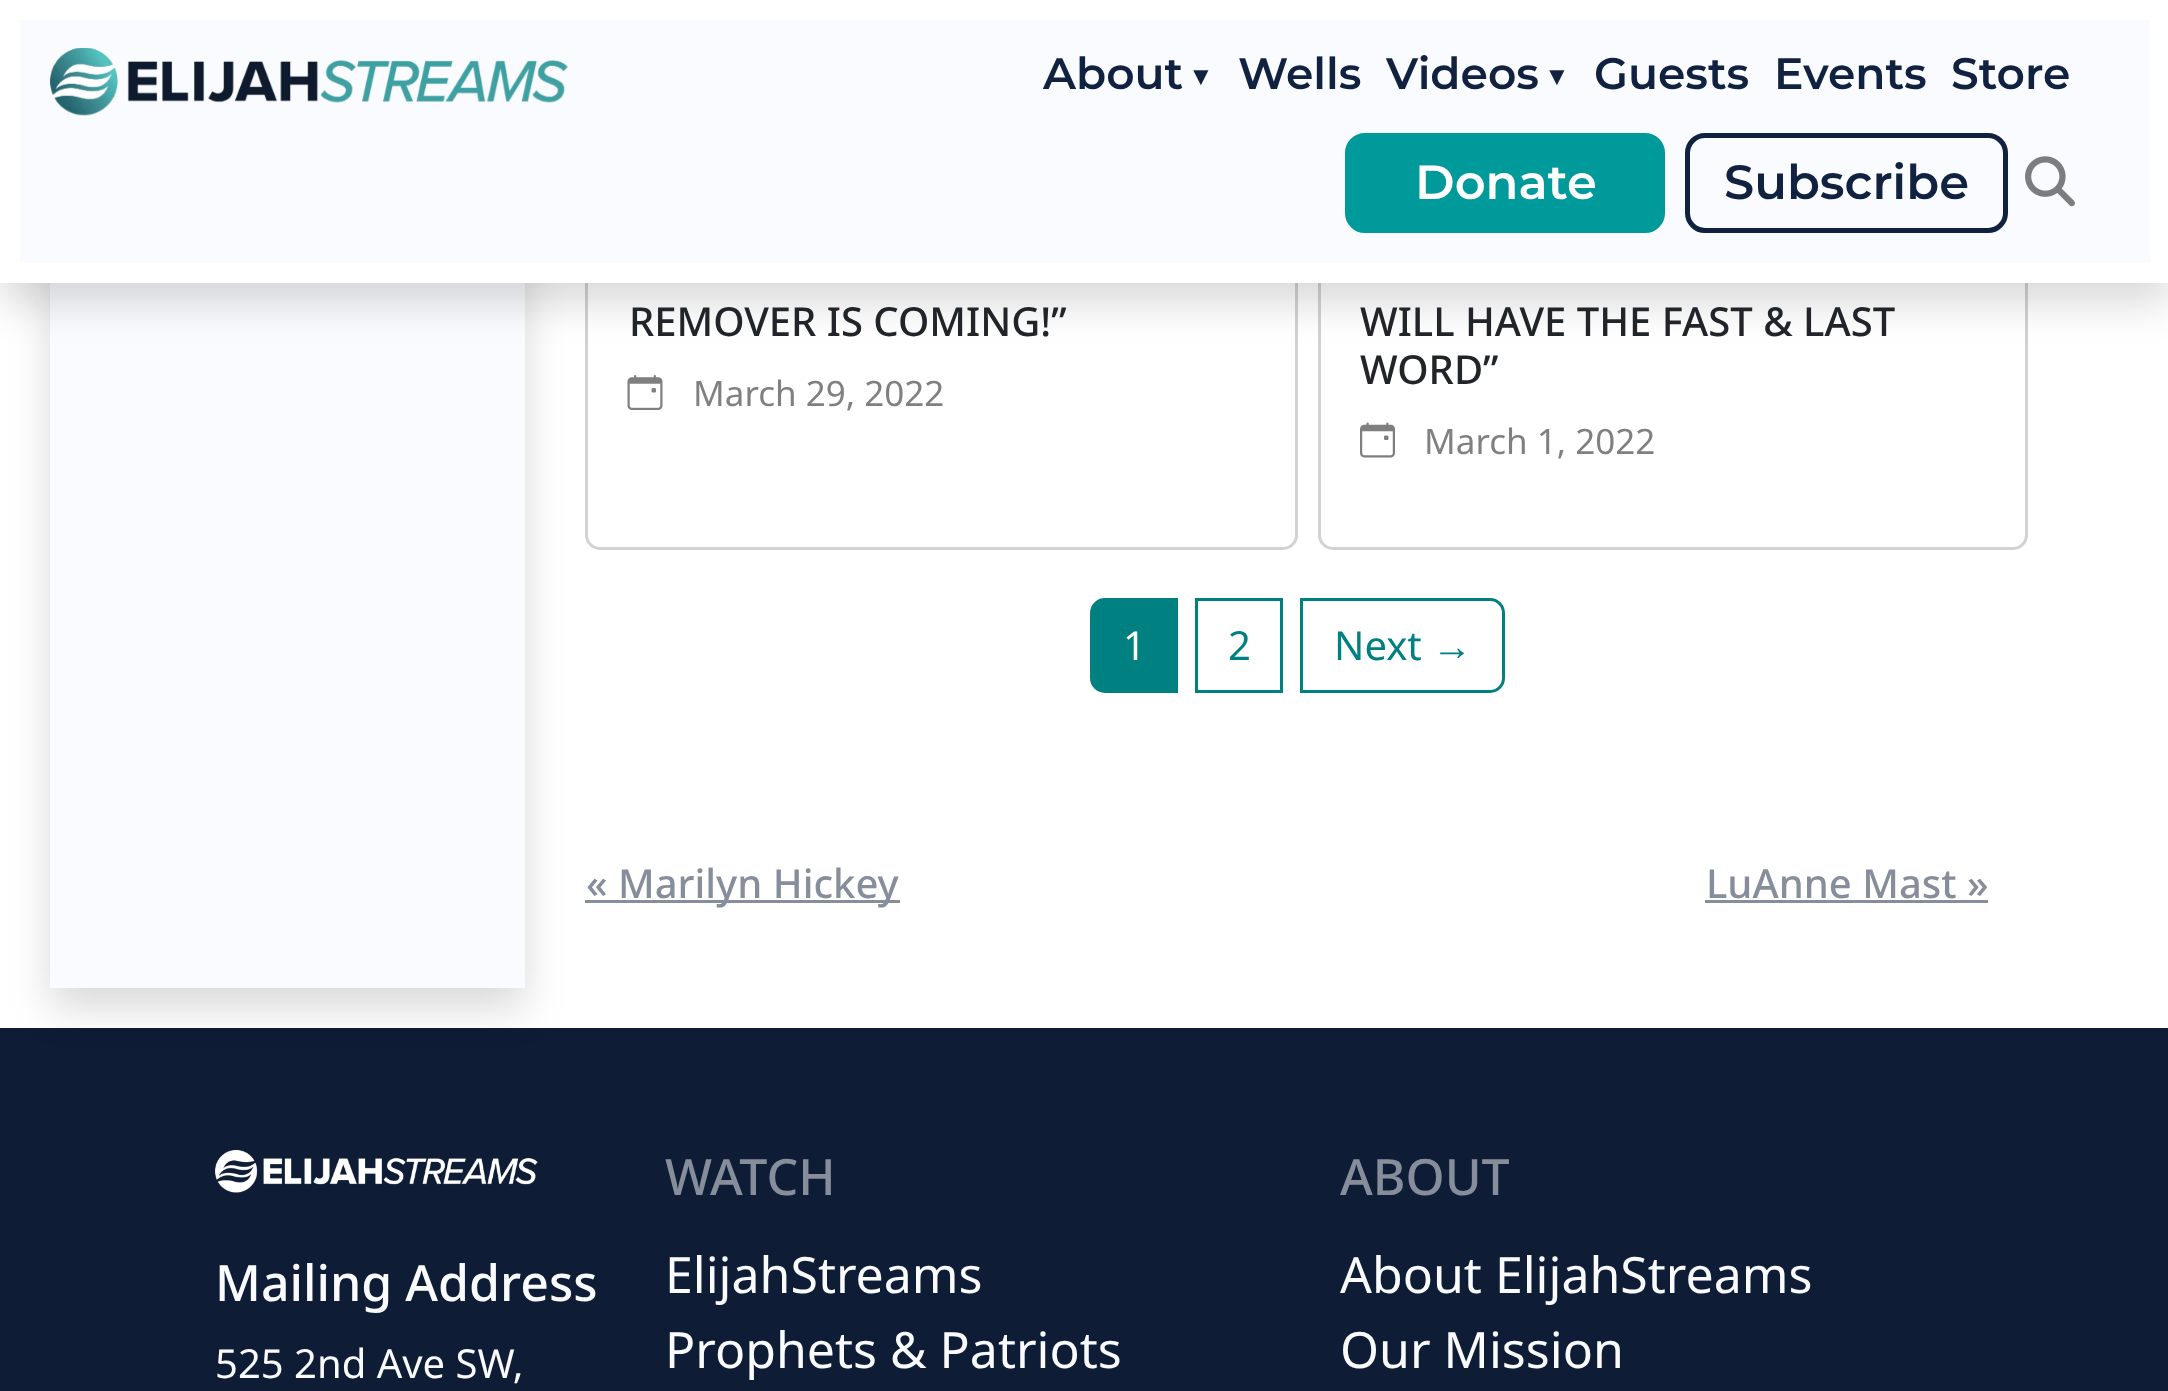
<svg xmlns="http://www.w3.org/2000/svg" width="2168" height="1391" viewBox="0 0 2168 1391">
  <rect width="100%" height="100%" fill="#fff"/>
  <path d="M0 1028h2168v363H0z" fill="#0e1c36"/>
  <path d="M50 -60h475v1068H50z" fill="#00000026" filter="blur(20px)"/>
  <path d="M50 283h475v705H50z" fill="#f9fbfe"/>
  <rect x="586.5" y="-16.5" width="710" height="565" rx="13.5" fill="none" stroke="#d2d2d2" stroke-width="3"/>
  <rect x="1319.5" y="-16.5" width="707" height="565" rx="13.5" fill="none" stroke="#d2d2d2" stroke-width="3"/>
  <path d="M0 20h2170v283H0z" fill="#00000026" filter="blur(20px)"/>
  <path d="M0 0h2168v283H0z" fill="#fff"/>
  <path d="M20 20h2130v243H20z" fill="#f9fbfe"/>
  <image x="50" y="48" width="518" height="68" href="img/1.png"/>
  <rect x="1347.5" y="135.5" width="315" height="95" rx="17.5" fill="#009a9a" stroke="#009a9a" stroke-width="5"/>
  <rect x="1687.5" y="135.5" width="318" height="95" rx="17.5" fill="none" stroke="#112241" stroke-width="5"/>
  <image x="2025" y="156" width="50" height="51" href="img/2.png"/>
  <image x="627" y="375" width="36" height="35" href="img/3.png"/>
  <image x="1360" y="422" width="35" height="36" href="img/4.png"/>
  <path d="M1105 599.5H1176.5V691.5H1105C1097.5 691.5 1091.5 685.5 1091.5 678V613C1091.5 605.5 1097.5 599.5 1105 599.5Z" fill="#008080" stroke="#008080" stroke-width="3"/>
  <path d="M1196.5 599.5h85v92H1196.5z" fill="none" stroke="#008080" stroke-width="3"/>
  <path d="M1301.5 599.5H1490C1497.5 599.5 1503.5 605.5 1503.5 613V678C1503.5 685.5 1497.5 691.5 1490 691.5H1301.5Z" fill="none" stroke="#008080" stroke-width="3"/>
  <path d="M585 900h315v3H585z" fill="#878e9b"/>
  <path d="M1705 900h283v3H1705z" fill="#878e9b"/>
  <image x="215" y="1150" width="323" height="43" href="img/5.png"/>
  <text x="1043" y="89" font-family="Montserrat" font-size="44" font-weight="600" fill="#112241">About</text>
  <text x="1188" y="85" font-family="Liberation Serif" font-size="26" fill="#112241">▼</text>
  <g font-family="Montserrat" font-size="44" font-weight="600" fill="#112241">
    <text x="1238" y="89">Wells</text>
    <text x="1386" y="89">Videos</text>
  </g>
  <text x="1544" y="85" font-family="Liberation Serif" font-size="26" fill="#112241">▼</text>
  <g font-family="Montserrat" font-size="44" font-weight="600" fill="#112241">
    <text x="1594" y="89">Guests</text>
    <text x="1774" y="89">Events</text>
    <text x="1951" y="89">Store</text>
  </g>
  <text x="1415" y="199" font-family="Montserrat" font-size="48" font-weight="600" fill="#fff">Donate</text>
  <text x="1724" y="199" font-family="Montserrat" font-size="48" font-weight="600" fill="#112241">Subscribe</text>
  <text x="629" y="336" font-family="Noto Sans" font-size="40" font-weight="500" fill="#212529">REMOVER IS COMING!”</text>
  <text x="693" y="406" font-family="Noto Sans" font-size="35" fill="#808080">March 29, 2022</text>
  <g font-family="Noto Sans" font-size="40" font-weight="500" fill="#212529">
    <text x="1360" y="336">WILL HAVE THE FAST &amp; LAST</text>
    <text x="1360" y="384">WORD”</text>
  </g>
  <text x="1424" y="454" font-family="Noto Sans" font-size="35" fill="#808080">March 1, 2022</text>
  <text x="1123" y="660" font-family="Noto Sans" font-size="40" fill="#fff">1</text>
  <g font-family="Noto Sans" font-size="40" fill="#008080">
    <text x="1228" y="660">2</text>
    <text x="1334" y="660">Next</text>
  </g>
  <text x="1432" y="660" font-family="Liberation Sans" font-size="40" fill="#008080">→</text>
  <g font-family="Noto Sans" font-size="40" font-weight="500" fill="#878e9b">
    <text x="586" y="898">« Marilyn Hickey</text>
    <text x="1706" y="898">LuAnne Mast »</text>
  </g>
  <text x="215" y="1301" font-family="Noto Sans" font-size="50" font-weight="500" fill="#f9fbfe">Mailing Address</text>
  <text x="215" y="1378" font-family="Noto Sans" font-size="40" fill="#f9fbfe">525 2nd Ave SW,</text>
  <text x="665" y="1195" font-family="Noto Sans" font-size="50" font-weight="500" fill="#878e9b">WATCH</text>
  <g font-family="Noto Sans" font-size="50" fill="#f9fbfe">
    <text x="665" y="1293">ElijahStreams</text>
    <text x="665" y="1368">Prophets &amp; Patriots</text>
  </g>
  <text x="1340" y="1195" font-family="Noto Sans" font-size="50" font-weight="500" fill="#878e9b">ABOUT</text>
  <g font-family="Noto Sans" font-size="50" fill="#f9fbfe">
    <text x="1340" y="1293">About ElijahStreams</text>
    <text x="1340" y="1368">Our Mission</text>
  </g>
</svg>
